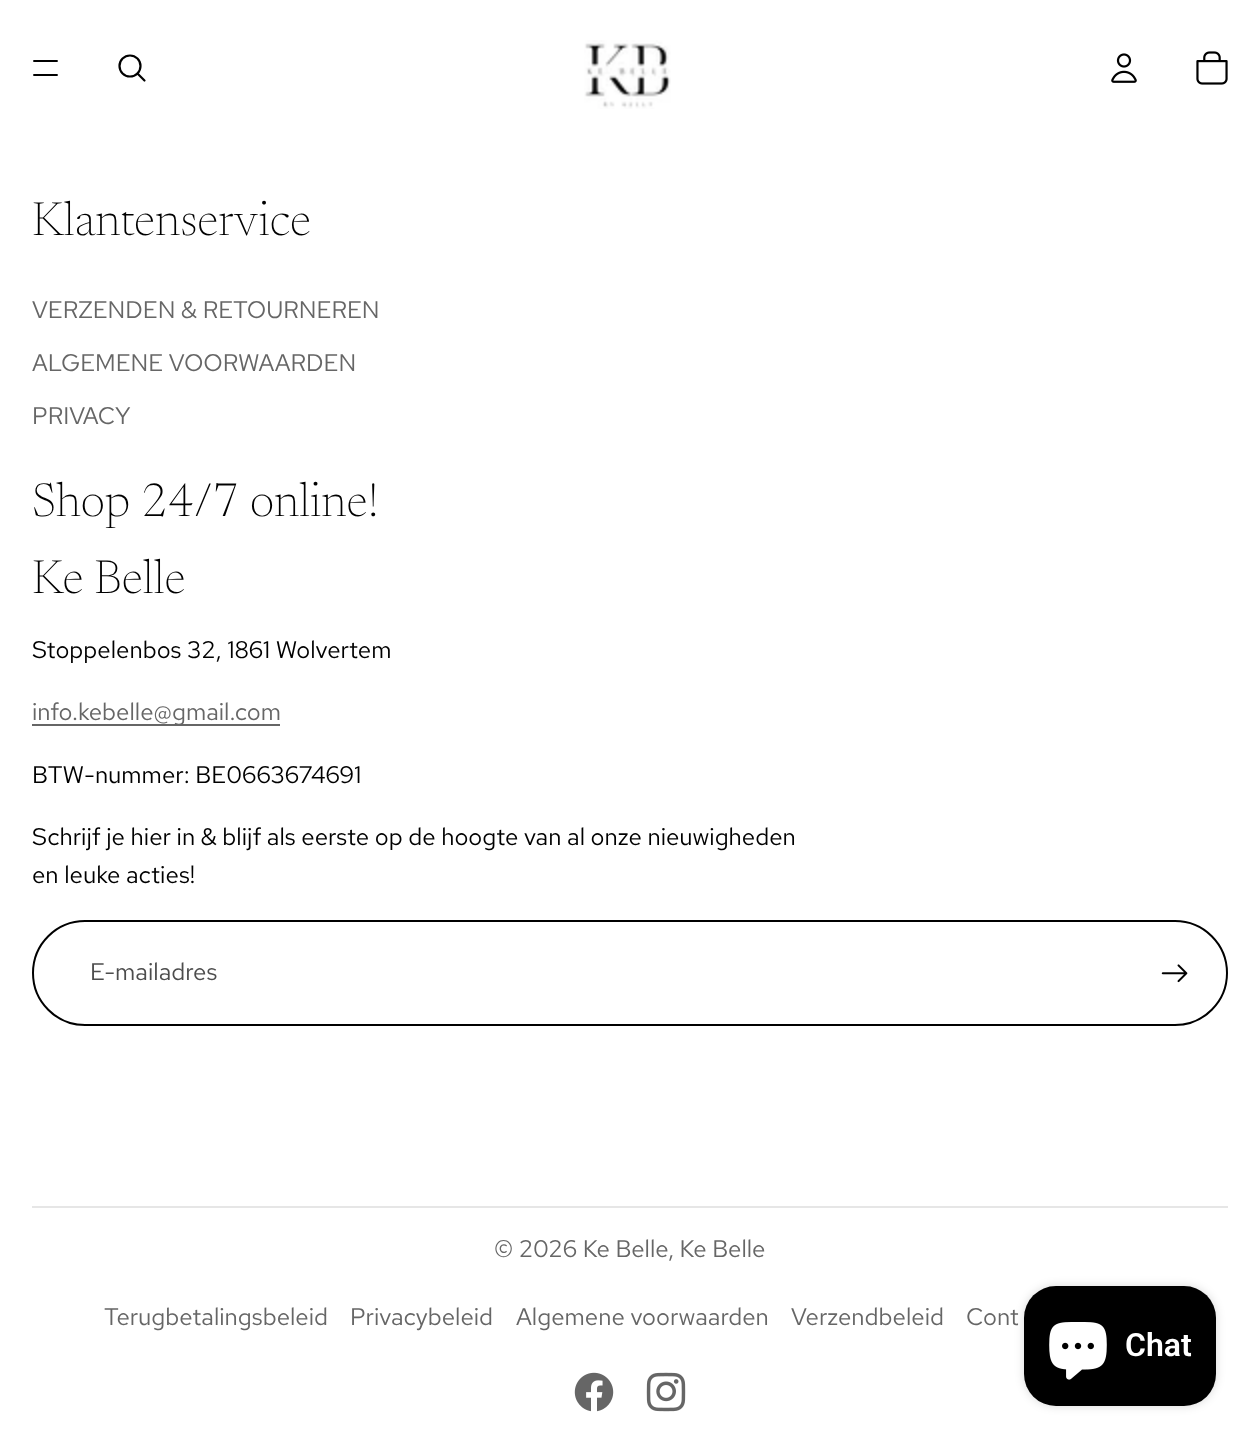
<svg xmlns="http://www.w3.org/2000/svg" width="1260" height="1447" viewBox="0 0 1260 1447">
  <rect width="100%" height="100%" fill="#fff"/>
  <path d="M34 61H57M34 75H57" fill="none" stroke="#000" stroke-width="1.9" stroke-linecap="round"/>
  <circle cx="130" cy="66" r="10.5" fill="none" stroke="#000" stroke-width="2.2"/>
  <path d="M137.5 73.5L144.5 80.5" fill="none" stroke="#000" stroke-width="2.2" stroke-linecap="round" stroke-linejoin="round"/>
  <image x="584" y="40" width="87" height="69" href="img/1.png"/>
  <image x="1111" y="53" width="26" height="30" href="img/2.png"/>
  <image x="1196" y="51" width="32" height="34" href="img/3.png"/>
  <path d="M32 724h248v2H32z" fill="#666"/>
  <rect x="33" y="921" width="1194" height="104" rx="52" fill="none" stroke="#000" stroke-width="2"/>
  <image x="1161" y="964" width="27" height="19" href="img/4.png"/>
  <path d="M32 1206h1196v2H32z" fill="#e6e6e6"/>
  <image x="574" y="1372" width="40" height="40" href="img/5.png"/>
  <image x="646" y="1372" width="40" height="40" href="img/6.png"/>
  <rect x="1024" y="1286" width="192" height="120" rx="32" fill="#00000026" filter="blur(5px)"/>
  <rect x="1024" y="1286" width="192" height="120" rx="32" fill="#000"/>
  <image x="1049" y="1322" width="58" height="58" href="img/7.png"/>
  <text x="32" y="235" font-family="Newsreader" font-size="48" font-weight="200" fill="#000">Klantenservice</text>
  <g font-family="Red Hat Text" font-size="24" fill="#666">
    <text x="32" y="318">VERZENDEN &amp; RETOURNEREN</text>
    <text x="32" y="371">ALGEMENE VOORWAARDEN</text>
    <text x="32" y="424">PRIVACY</text>
  </g>
  <g font-family="Newsreader" font-size="48" font-weight="200" fill="#000">
    <text x="32" y="516">Shop 24/7 online!</text>
    <text x="32" y="593">Ke Belle</text>
  </g>
  <text x="32" y="658" font-family="Red Hat Text" font-size="24" fill="#000">Stoppelenbos 32, 1861 Wolvertem</text>
  <text x="32" y="720" font-family="Red Hat Text" font-size="24" fill="#666">info.kebelle@gmail.com</text>
  <g font-family="Red Hat Text" font-size="24" fill="#000">
    <text x="32" y="783">BTW-nummer: BE0663674691</text>
    <text x="32" y="845">Schrijf je hier in &amp; blijf als eerste op de hoogte van al onze nieuwigheden</text>
    <text x="32" y="883">en leuke acties!</text>
  </g>
  <text x="90" y="980" font-family="Red Hat Text" font-size="24" fill="#4d4d4d">E-mailadres</text>
  <g font-family="Red Hat Text" font-size="24" fill="#666">
    <text x="494" y="1257">© 2026 Ke Belle</text>
    <text x="668" y="1257">, Ke Belle</text>
    <text x="104" y="1325">Terugbetalingsbeleid</text>
    <text x="350" y="1325">Privacybeleid</text>
    <text x="516" y="1325">Algemene voorwaarden</text>
    <text x="791" y="1325">Verzendbeleid</text>
    <text x="966" y="1325">Cont</text>
  </g>
  <text x="1125" y="1356" font-family="Roboto" font-size="32" font-weight="600" fill="#fff">Chat</text>
</svg>
